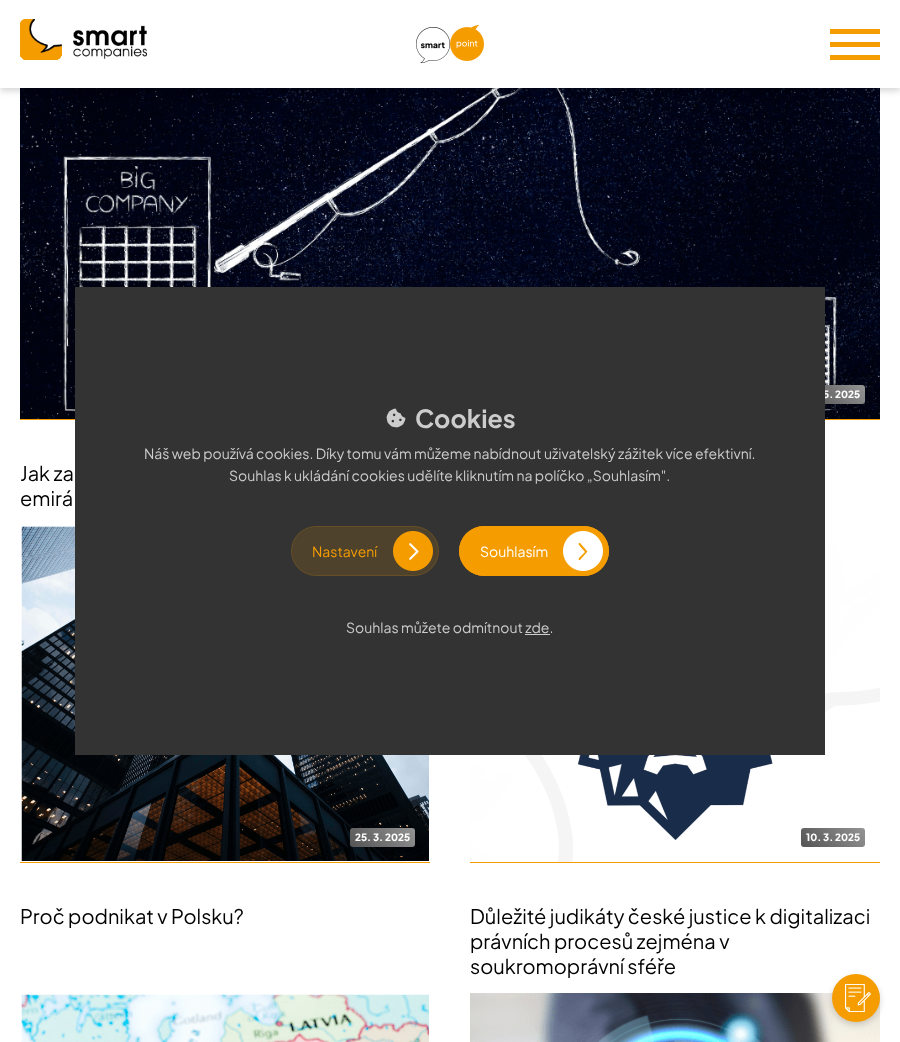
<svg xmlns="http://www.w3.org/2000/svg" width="900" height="1042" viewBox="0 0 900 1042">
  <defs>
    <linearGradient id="g1" gradientUnits="userSpaceOnUse" x1="816" y1="414" x2="855" y2="375"><stop offset="0" stop-color="#545454"/><stop offset="1" stop-color="#949494"/></linearGradient>
    <linearGradient id="g2" gradientUnits="userSpaceOnUse" x1="362" y1="859" x2="404" y2="817"><stop offset="0" stop-color="#545454"/><stop offset="1" stop-color="#949494"/></linearGradient>
    <linearGradient id="g3" gradientUnits="userSpaceOnUse" x1="812" y1="858" x2="854" y2="817"><stop offset="0" stop-color="#545454"/><stop offset="1" stop-color="#949494"/></linearGradient>
  </defs>
  <rect width="100%" height="100%" fill="#fff"/>
  <image x="20" y="88" width="860" height="331" href="img/3.png"/>
  <path d="M0 3h900v88H0z" fill="#00000029" filter="blur(3px)"/>
  <path d="M0 0h900v88H0z" fill="#fff"/>
  <image x="20" y="19" width="127" height="41" href="img/1.png"/>
  <image x="416" y="25" width="68" height="38" href="img/2.png"/>
  <path d="M830 29h50v5H830z" fill="#f59c00"/>
  <path d="M830 42h50v5H830z" fill="#f59c00"/>
  <path d="M830 55h50v5H830z" fill="#f59c00"/>
  <path d="M20 419h860v1H20z" fill="#f59c00"/>
  <rect x="806" y="385" width="59" height="19" rx="3" fill="url(#g1)"/>
  <path d="M20 862h410v1H20z" fill="#f59c00"/>
  <image x="21" y="526" width="408" height="335" href="img/4.png"/>
  <rect x="350" y="828" width="65" height="19" rx="3" fill="url(#g2)"/>
  <path d="M470 862h410v1H470z" fill="#f59c00"/>
  <image x="470" y="525" width="410" height="337" href="img/5.png"/>
  <rect x="801" y="828" width="64" height="19" rx="3" fill="url(#g3)"/>
  <image x="21" y="994" width="408" height="48" href="img/6.png"/>
  <image x="470" y="993" width="410" height="49" href="img/7.png"/>
  <rect x="832" y="977" width="48" height="48" rx="24" fill="#00000029" filter="blur(3px)"/>
  <circle cx="856" cy="998" r="24" fill="#f59c00"/>
  <image x="845" y="984" width="26" height="28" href="img/11.png"/>
  <text x="823" y="398" font-family="Plus Jakarta Sans" font-size="10" font-weight="800" fill="#fff">5. 2025</text>
  <g font-family="Plus Jakarta Sans" font-size="20" fill="#000">
    <text x="20" y="481">Jak za</text>
    <text x="20" y="506">emirá</text>
  </g>
  <g font-family="Plus Jakarta Sans" font-size="10" font-weight="800" fill="#fff">
    <text x="355" y="841">25. 3. 2025</text>
    <text x="806" y="841">10. 3. 2025</text>
  </g>
  <g font-family="Plus Jakarta Sans" font-size="20" fill="#000">
    <text x="20" y="924">Proč podnikat v Polsku?</text>
    <text x="470" y="924">Důležité judikáty české justice k digitalizaci</text>
    <text x="470" y="949">právních procesů zejména v</text>
    <text x="470" y="974">soukromoprávní sféře</text>
  </g>
  <path d="M75 287h750v468H75z" fill="#333"/>
  <image x="386" y="408" width="20" height="20" href="img/8.png"/>
  <text x="415" y="428" font-family="Plus Jakarta Sans" font-size="25" font-weight="bold" fill="#ccc">Cookies</text>
  <g font-family="Plus Jakarta Sans" font-size="14" fill="#ccc">
    <text x="144" y="459">Náš web používá cookies. Díky tomu vám můžeme nabídnout uživatelský zážitek více efektivní.</text>
    <text x="229" y="481">Souhlas k ukládání cookies udělíte kliknutím na políčko „Souhlasím".</text>
  </g>
  <rect x="291" y="526" width="148" height="50" rx="25" fill="#4e422c"/>
  <image x="393" y="531" width="40" height="40" href="img/9.png"/>
  <rect x="291.5" y="526.5" width="147" height="49" rx="24.5" fill="none" stroke="#f59c0024"/>
  <text x="312" y="557" font-family="Plus Jakarta Sans" font-size="14" fill="#f59c00">Nastavení</text>
  <rect x="459" y="526" width="150" height="50" rx="25" fill="#f59c00"/>
  <image x="563" y="531" width="40" height="40" href="img/10.png"/>
  <rect x="459.5" y="526.5" width="149" height="49" rx="24.5" fill="none" stroke="#f59c00"/>
  <text x="480" y="557" font-family="Plus Jakarta Sans" font-size="14" fill="#fff">Souhlasím</text>
  <text x="346" y="633" font-family="Plus Jakarta Sans" font-size="14" fill="#ccc">Souhlas můžete odmítnout zde.</text>
  <path d="M525 634h25v1H525z" fill="#ccc"/>
</svg>
